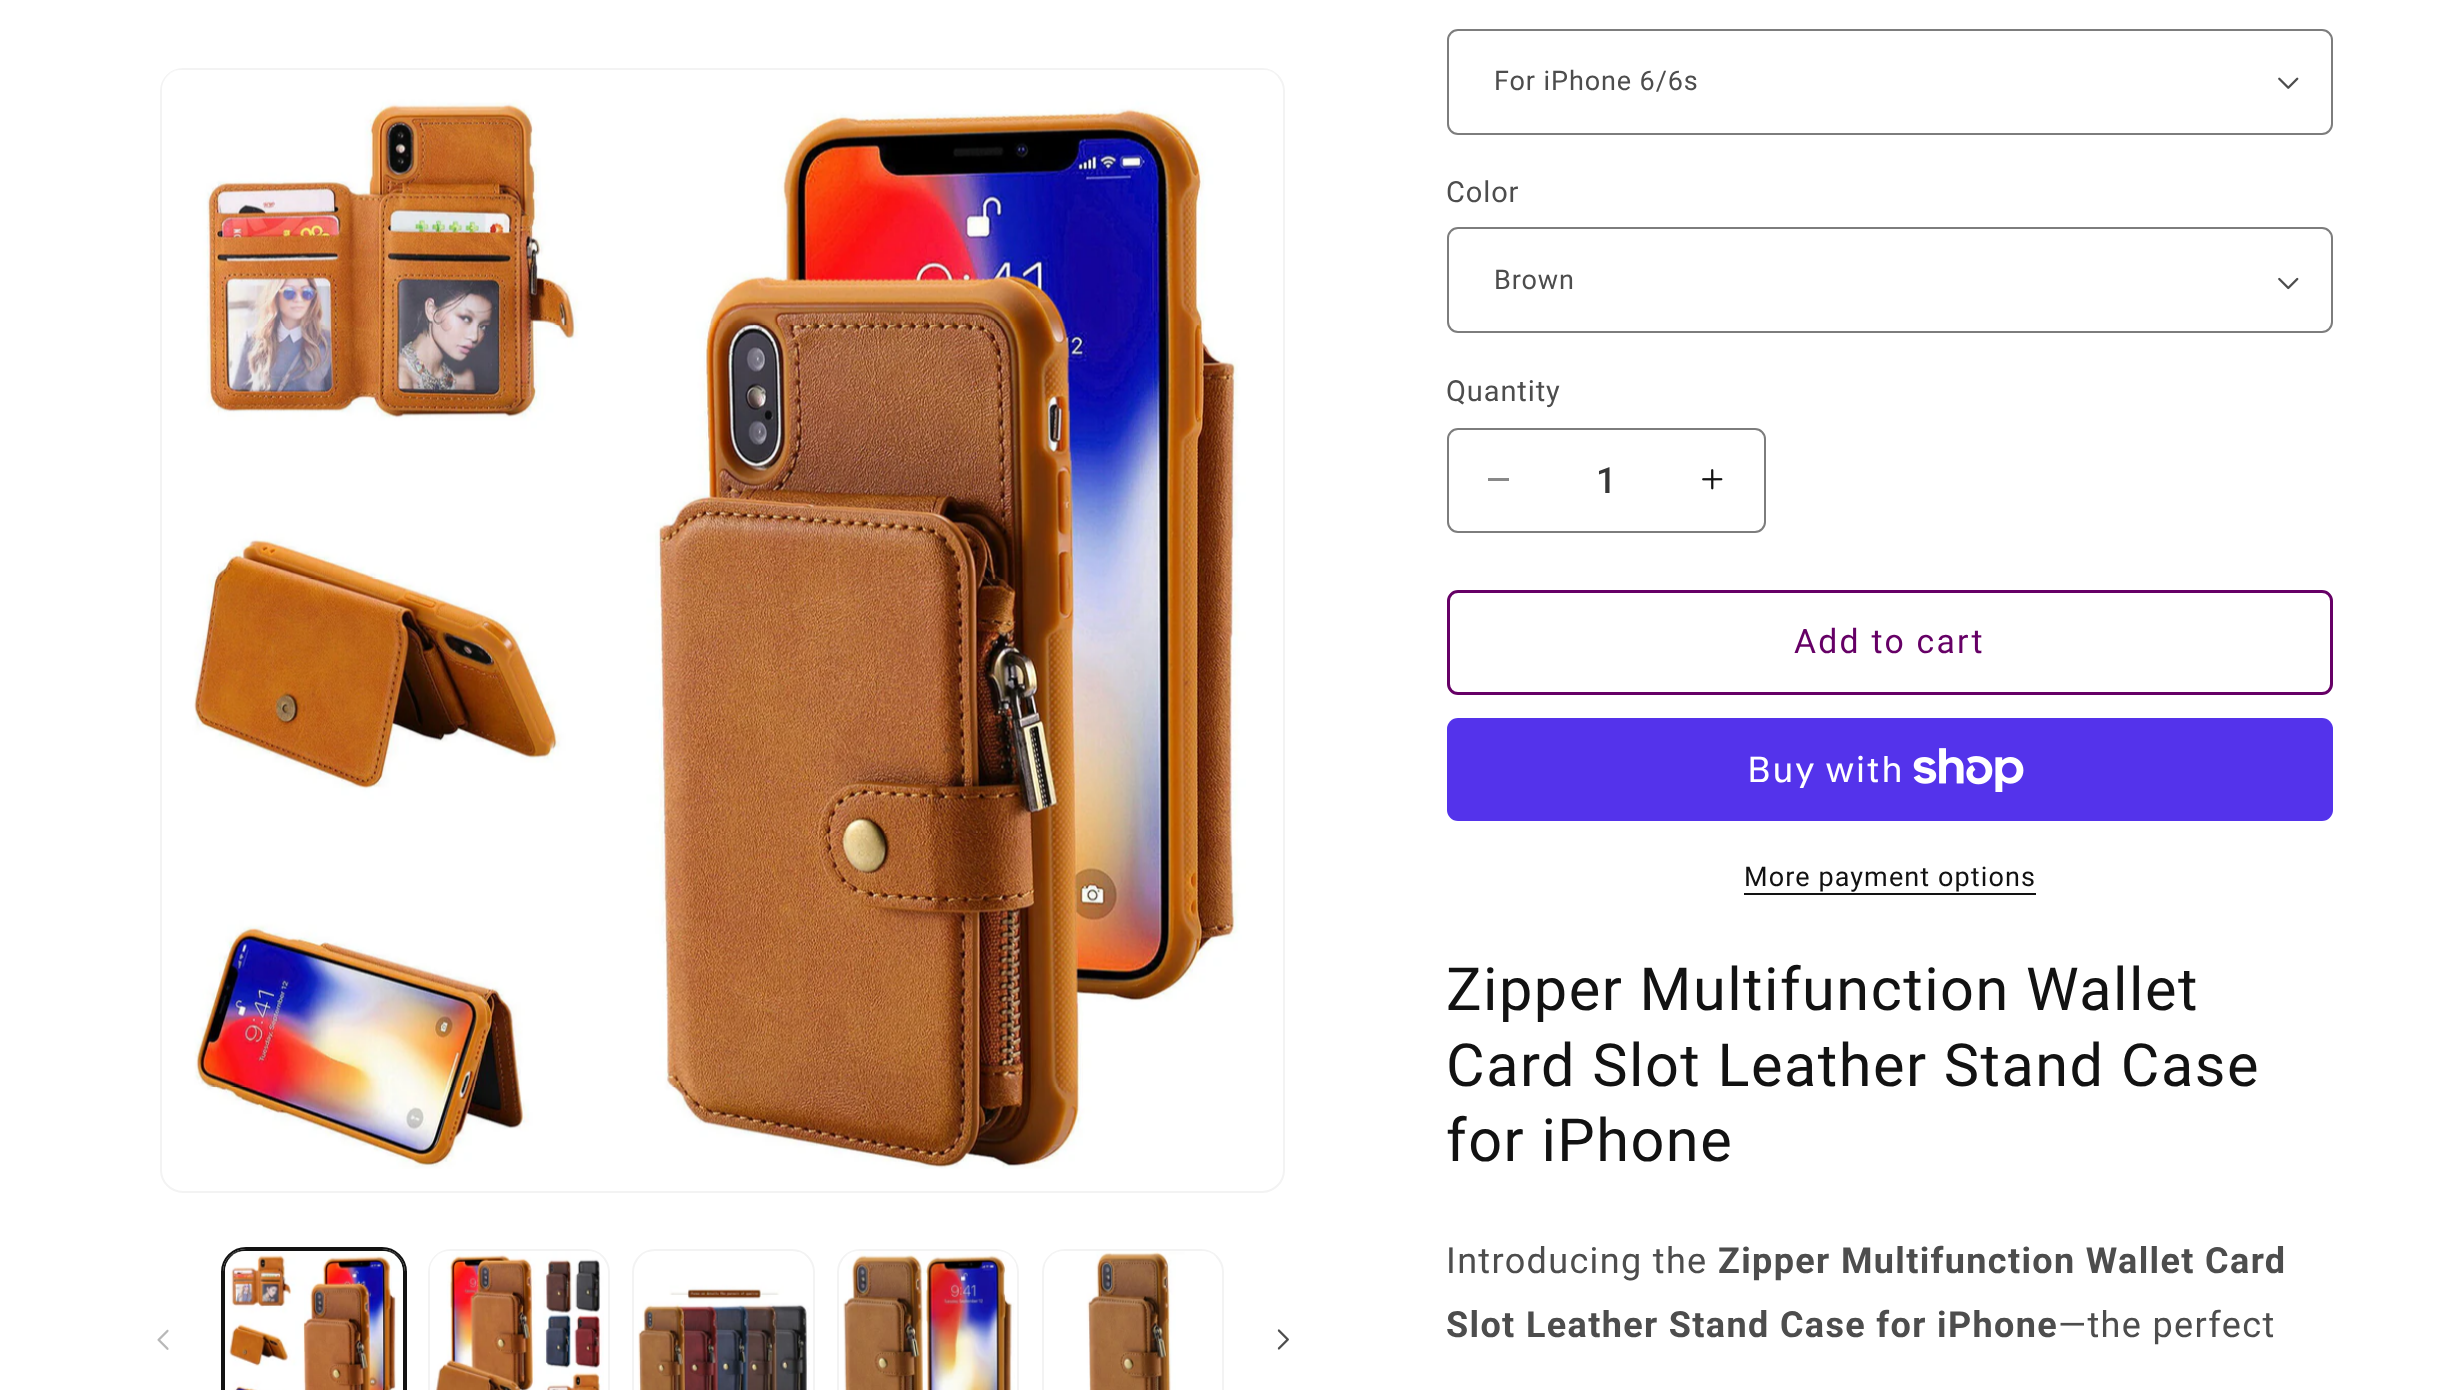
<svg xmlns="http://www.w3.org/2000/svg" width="2444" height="1390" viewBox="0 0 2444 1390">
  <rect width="100%" height="100%" fill="#fff"/>
  <rect x="161" y="69" width="1123" height="1123" rx="22" fill="none" stroke="#f3f3f3" stroke-width="2"/>
  <image x="162" y="70" width="1116" height="1099" href="img/1.png"/>
  <image x="157" y="1329" width="12" height="21" href="img/2.png"/>
  <rect x="222" y="1248" width="184" height="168" rx="24" fill="none" stroke="#121212" stroke-width="2"/>
  <rect x="224" y="1250" width="180" height="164" rx="22" fill="none" stroke="#121212" stroke-width="2"/>
  <image x="225" y="1251" width="178" height="139" href="img/3.png"/>
  <rect x="429" y="1250" width="180" height="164" rx="22" fill="none" stroke="#f3f3f3" stroke-width="2"/>
  <image x="430" y="1251" width="174" height="139" href="img/4.png"/>
  <rect x="633" y="1250" width="181" height="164" rx="22" fill="none" stroke="#f3f3f3" stroke-width="2"/>
  <image x="638" y="1252" width="172" height="138" href="img/5.png"/>
  <rect x="838" y="1250" width="180" height="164" rx="22" fill="none" stroke="#f3f3f3" stroke-width="2"/>
  <image x="843" y="1251" width="173" height="139" href="img/6.png"/>
  <rect x="1043" y="1250" width="180" height="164" rx="22" fill="none" stroke="#f3f3f3" stroke-width="2"/>
  <image x="1045" y="1251" width="171" height="139" href="img/7.png"/>
  <image x="1277" y="1329" width="12" height="21" href="img/8.png"/>
  <image x="2278" y="77" width="21" height="12" href="img/9.png"/>
  <rect x="1448" y="30" width="884" height="104" rx="10" fill="none" stroke="#7d7d7d" stroke-width="2"/>
  <image x="2278" y="277" width="21" height="13" href="img/10.png"/>
  <rect x="1448" y="228" width="884" height="104" rx="10" fill="none" stroke="#7d7d7d" stroke-width="2"/>
  <path d="M1488 478h21v3H1488z" fill="#898989"/>
  <image x="1702" y="469" width="21" height="21" href="img/11.png"/>
  <rect x="1448" y="429" width="317" height="103" rx="10" fill="none" stroke="#7d7d7d" stroke-width="2"/>
  <rect x="1448.5" y="591.5" width="883" height="102" rx="9.5" fill="none" stroke="#606" stroke-width="3"/>
  <rect x="1447" y="718" width="886" height="103" rx="11" fill="#5433eb"/>
  <image x="1913" y="748" width="111" height="44" href="img/12.png"/>
  <path d="M1744 893h292v2H1744z" fill="#121212"/>
  <text x="1494" y="90" font-family="Roboto" font-size="27" letter-spacing="0.9" fill="#4d4d4d">For iPhone 6/6s</text>
  <text x="1446" y="202" font-family="Roboto" font-size="29" letter-spacing="0.9" fill="#4d4d4d">Color</text>
  <text x="1494" y="289" font-family="Roboto" font-size="27" letter-spacing="0.9" fill="#4d4d4d">Brown</text>
  <text x="1446" y="401" font-family="Roboto" font-size="29" letter-spacing="0.9" fill="#4d4d4d">Quantity</text>
  <text x="1596" y="493" font-family="Roboto" font-size="36" font-weight="500" fill="#363636">1</text>
  <text x="1794" y="653" font-family="Roboto" font-size="33.75" letter-spacing="2.25" fill="#606">Add to cart</text>
  <text x="1747" y="782" font-family="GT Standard" font-size="36" letter-spacing="1.35" fill="#fff">Buy with</text>
  <text x="1744" y="886" font-family="Roboto" font-size="27" letter-spacing="1.1" fill="#121212">More payment options</text>
  <g font-family="Roboto" font-size="59.4" letter-spacing="1.5" fill="#121212">
    <text x="1446" y="1010">Zipper Multifunction Wallet</text>
    <text x="1446" y="1086">Card Slot Leather Stand Case</text>
    <text x="1446" y="1161">for iPhone</text>
  </g>
  <text x="1446" y="1273" font-family="Roboto" font-size="36" letter-spacing="1.35" fill="#4d4d4d">Introducing the</text>
  <g font-family="Roboto" font-size="36" font-weight="bold" letter-spacing="1.35" fill="#4d4d4d">
    <text x="1718" y="1273">Zipper Multifunction Wallet Card</text>
    <text x="1446" y="1337">Slot Leather Stand Case for iPhone</text>
  </g>
  <text x="2058" y="1337" font-family="Roboto" font-size="36" letter-spacing="1.35" fill="#4d4d4d">—the perfect</text>
</svg>
